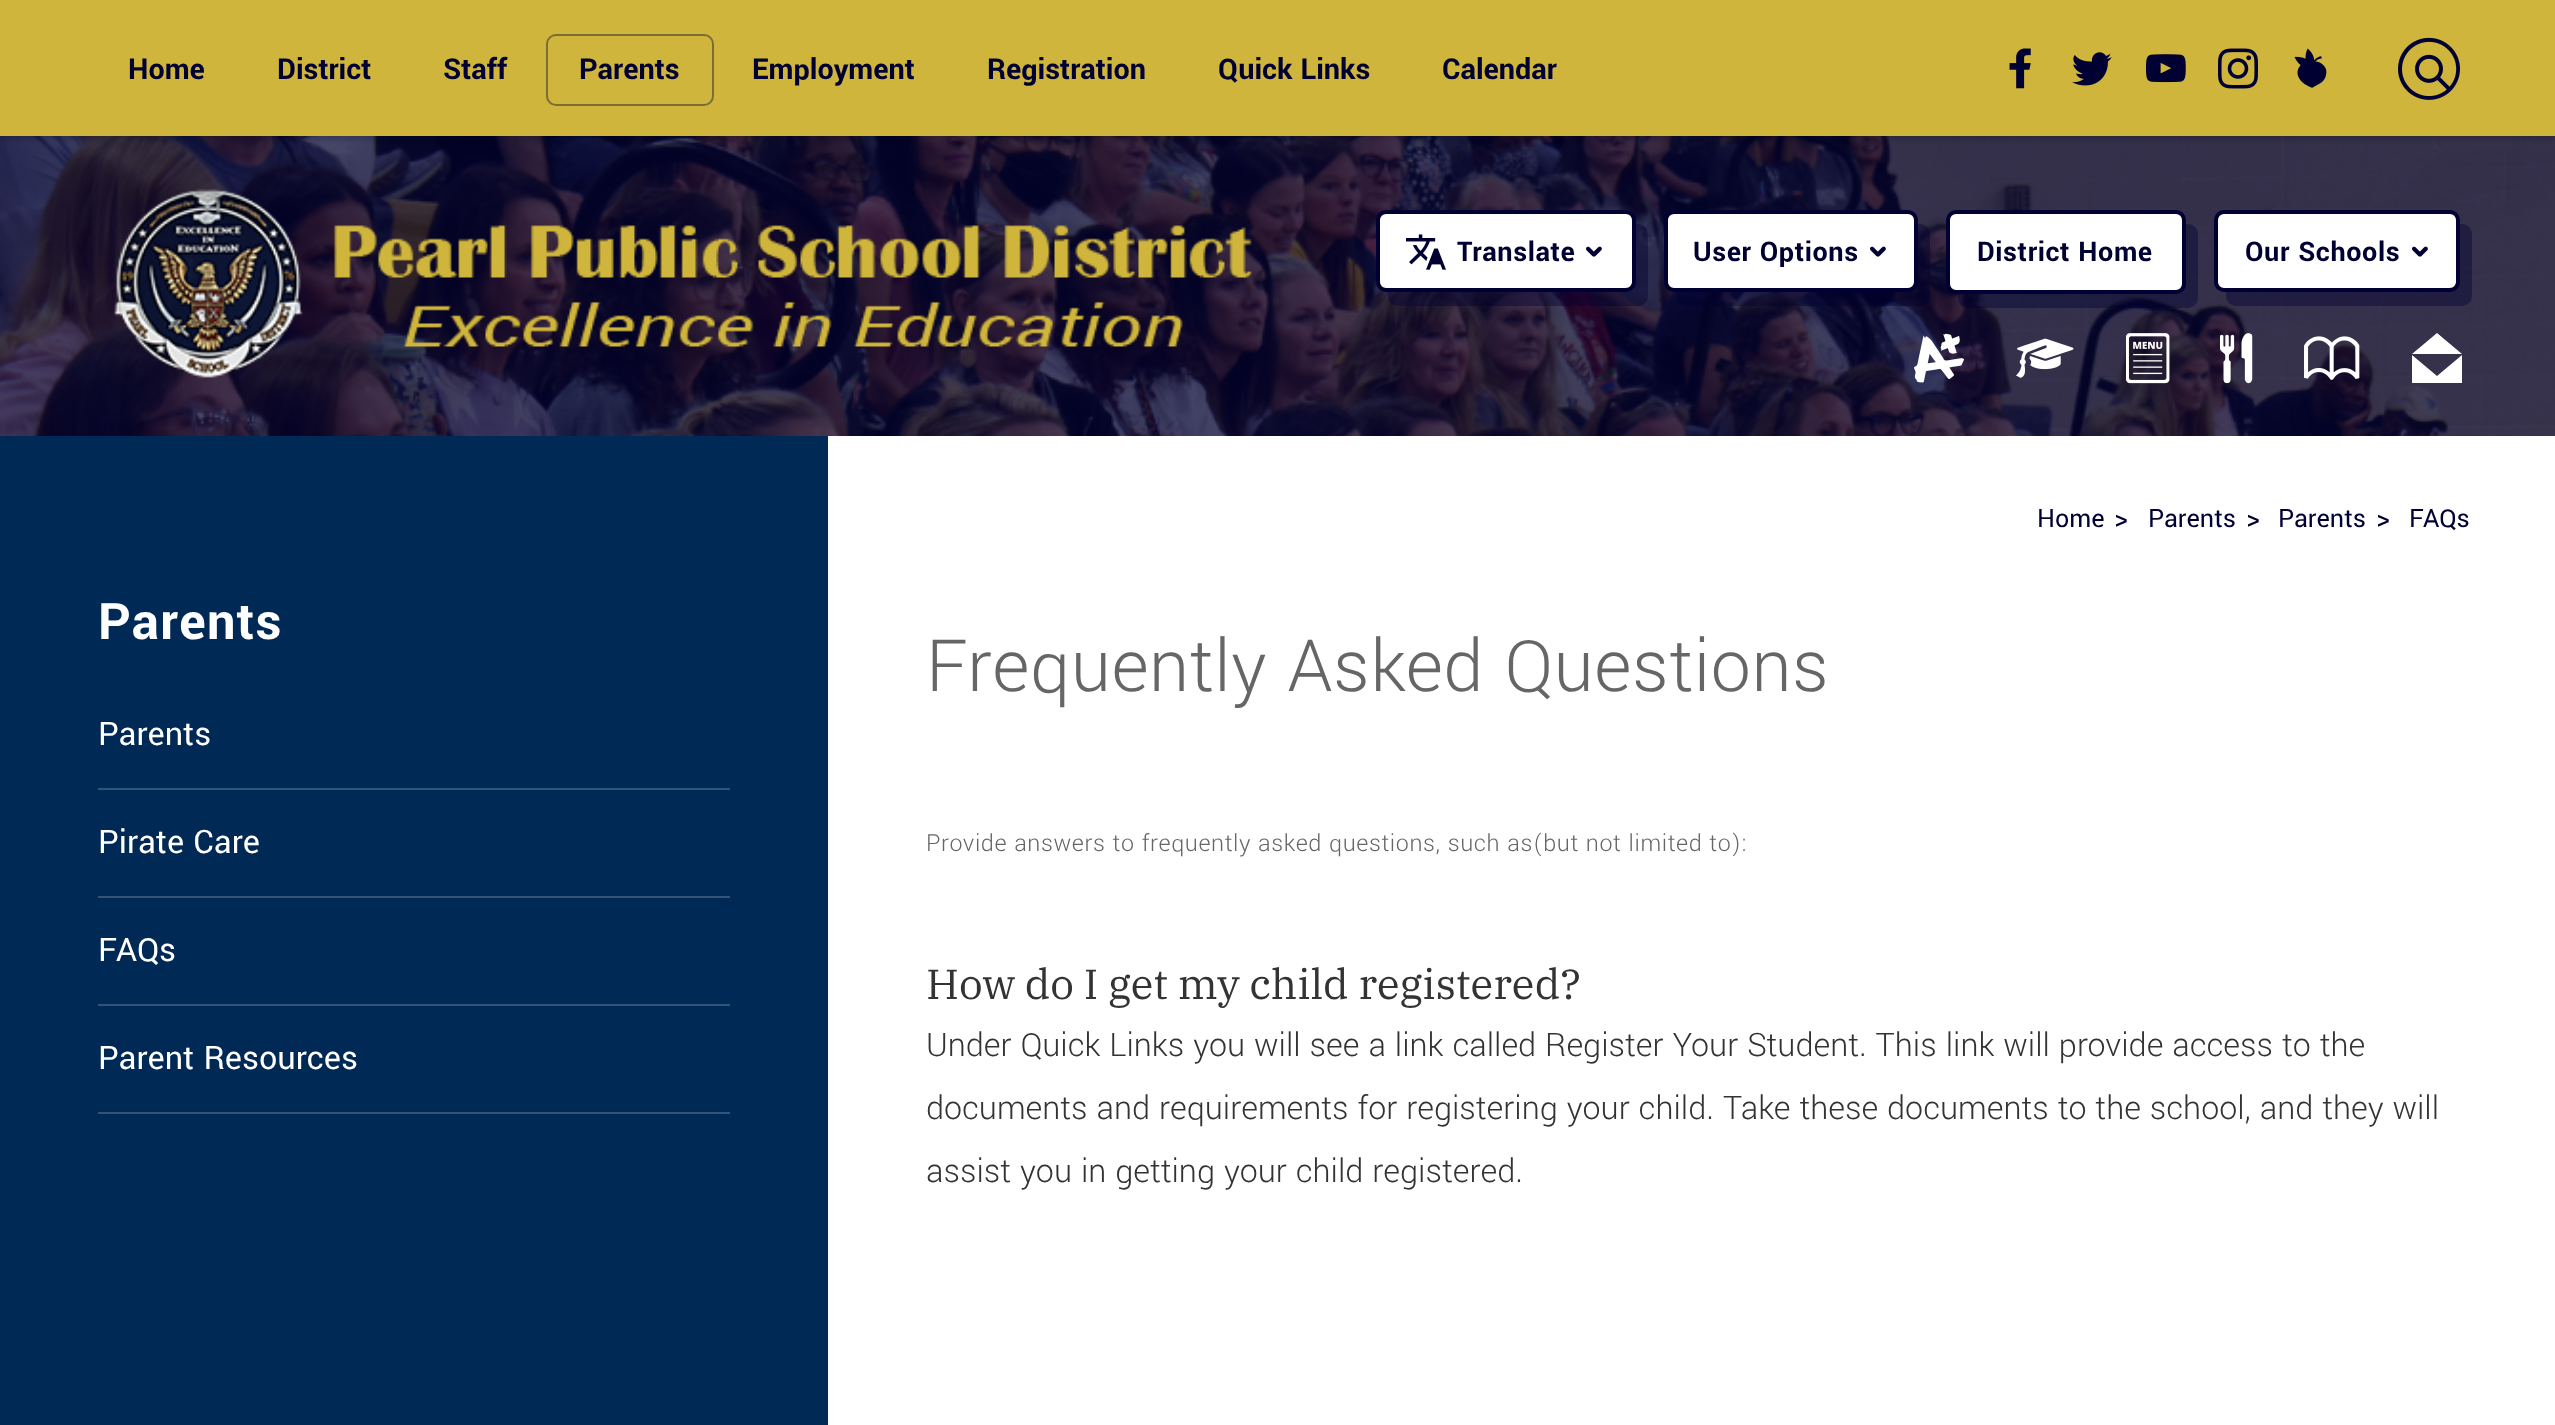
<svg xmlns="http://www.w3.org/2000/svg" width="2555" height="1425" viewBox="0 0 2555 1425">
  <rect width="100%" height="100%" fill="#fff"/>
  <image x="0" y="136" width="2555" height="300" href="img/1.png"/>
  <path d="M0 136h2555v300H0z" fill="#000033b3"/>
  <path d="M0 4h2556v136H0z" fill="#00000026" filter="blur(2px)"/>
  <path d="M0 0h2555v136H0z" fill="#cfb53b"/>
  <rect x="547" y="35" width="166" height="70" rx="9" fill="none" stroke="#7c6d38" stroke-width="2"/>
  <image x="2009" y="48" width="22" height="41" href="img/2.png"/>
  <image x="2072" y="52" width="40" height="34" href="img/3.png"/>
  <image x="2146" y="54" width="40" height="29" href="img/4.png"/>
  <image x="2218" y="48" width="40" height="41" href="img/5.png"/>
  <image x="2294" y="48" width="33" height="40" href="img/6.png"/>
  <image x="2398" y="37" width="62" height="63" href="img/7.png"/>
  <image x="114" y="189" width="1138" height="189" href="img/8.png"/>
  <rect x="1388" y="224" width="260" height="82" rx="10" fill="#00003366"/>
  <rect x="1378" y="212" width="256" height="78" rx="8" fill="#fff" stroke="#003" stroke-width="4"/>
  <image x="1406" y="234" width="40" height="36" href="img/9.png"/>
  <image x="1586" y="246" width="16" height="11" href="img/10.png"/>
  <rect x="1676" y="224" width="254" height="82" rx="10" fill="#00003366"/>
  <rect x="1666" y="212" width="250" height="78" rx="8" fill="#fff" stroke="#003" stroke-width="4"/>
  <image x="1870" y="246" width="16" height="11" href="img/10.png"/>
  <rect x="1958" y="224" width="240" height="84" rx="10" fill="#00003366"/>
  <rect x="1948" y="212" width="236" height="80" rx="8" fill="#fff" stroke="#003" stroke-width="4"/>
  <rect x="2226" y="224" width="246" height="82" rx="10" fill="#00003366"/>
  <rect x="2216" y="212" width="242" height="78" rx="8" fill="#fff" stroke="#003" stroke-width="4"/>
  <image x="2412" y="246" width="16" height="11" href="img/10.png"/>
  <image x="1914" y="333" width="50" height="50" href="img/11.png"/>
  <image x="2016" y="338" width="58" height="40" href="img/12.png"/>
  <image x="2126" y="333" width="44" height="51" href="img/13.png"/>
  <image x="2220" y="333" width="33" height="51" href="img/14.png"/>
  <image x="2304" y="336" width="56" height="44" href="img/15.png"/>
  <path d="M2412 355V383H2462V355L2437 376ZM2437 333L2412 354H2462Z" fill="#fff"/>
  <path d="M0 436h828v989H0z" fill="#002955"/>
  <path d="M98 788h632v2H98z" fill="#335477"/>
  <path d="M98 896h632v2H98z" fill="#335477"/>
  <path d="M98 1004h632v2H98z" fill="#335477"/>
  <path d="M98 1112h632v2H98z" fill="#335477"/>
  <image x="2116" y="514" width="11" height="13" href="img/16.png"/>
  <image x="2248" y="514" width="11" height="13" href="img/16.png"/>
  <image x="2378" y="514" width="11" height="13" href="img/16.png"/>
  <g font-family="Yantramanav" font-size="32" font-weight="bold" fill="#003">
    <text x="128" y="79">Home</text>
    <text x="277" y="79">District</text>
    <text x="443" y="79">Staff</text>
    <text x="579" y="79">Parents</text>
    <text x="752" y="79">Employment</text>
    <text x="987" y="79">Registration</text>
    <text x="1218" y="79">Quick Links</text>
    <text x="1442" y="79">Calendar</text>
  </g>
  <g font-family="Yantramanav" font-size="30" font-weight="bold" letter-spacing="0.6" fill="#003">
    <text x="1457" y="261">Translate</text>
    <text x="1693" y="261">User Options</text>
    <text x="1977" y="261">District Home</text>
    <text x="2245" y="261">Our Schools</text>
  </g>
  <text x="98" y="639" font-family="Yantramanav" font-size="56" font-weight="bold" letter-spacing="1.25" fill="#fff">Parents</text>
  <g font-family="Yantramanav" font-size="36" fill="#fff">
    <text x="98" y="745">Parents</text>
    <text x="98" y="853">Pirate Care</text>
    <text x="98" y="961">FAQs</text>
    <text x="98" y="1069">Parent Resources</text>
  </g>
  <g font-family="Yantramanav" font-size="28" fill="#003">
    <text x="2037" y="527">Home</text>
    <text x="2148" y="527">Parents</text>
    <text x="2278" y="527">Parents</text>
    <text x="2409" y="527">FAQs</text>
  </g>
  <text x="926" y="691" font-family="Yantramanav" font-size="80" font-weight="300" letter-spacing="0.6" fill="#666">Frequently Asked Questions</text>
  <text x="926" y="851" font-family="Yantramanav" font-size="26" font-weight="300" letter-spacing="0.6" fill="#666">Provide answers to frequently asked questions, such as(but not limited to):</text>
  <text x="926" y="999" font-family="IBM Plex Serif" font-size="42" fill="#333">How do I get my child registered?</text>
  <g font-family="Yantramanav" font-size="36" font-weight="300" fill="#333">
    <text x="926" y="1056">Under Quick Links you will see a link called Register Your Student. This link will provide access to the</text>
    <text x="926" y="1119">documents and requirements for registering your child. Take these documents to the school, and they will</text>
    <text x="926" y="1182">assist you in getting your child registered.</text>
  </g>
</svg>
